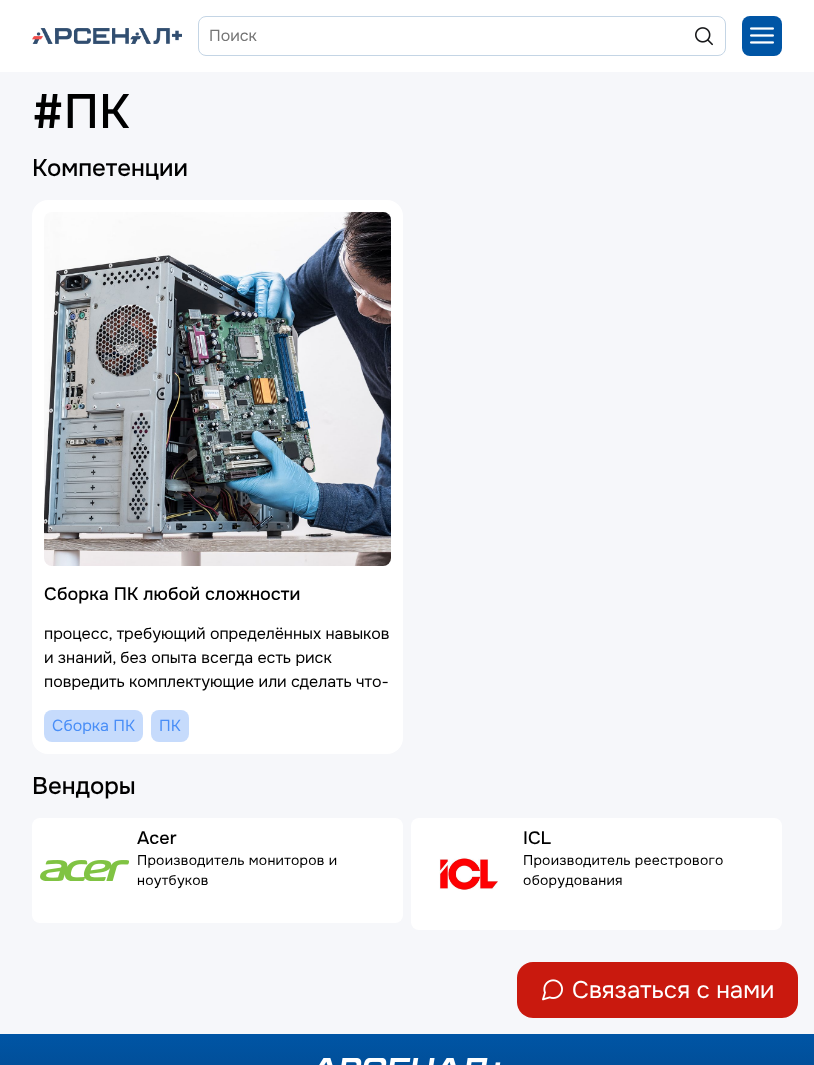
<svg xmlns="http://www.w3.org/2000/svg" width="814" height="1065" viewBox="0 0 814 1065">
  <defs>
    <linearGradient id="g1" gradientUnits="userSpaceOnUse" x1="407" y1="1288" x2="407" y2="1034"><stop offset="0" stop-color="#07264a"/><stop offset="1" stop-color="#0055a5"/></linearGradient>
  </defs>
  <rect width="100%" height="100%" fill="#f6f7fa"/>
  <path d="M0 0h814v72H0z" fill="#fff"/>
  <image x="32" y="28" width="150" height="16" href="img/1.png"/>
  <rect x="198.5" y="16.5" width="527" height="39" rx="7.5" fill="none" stroke="#c4d5e5"/>
  <image x="695" y="27" width="18" height="19" href="img/2.png"/>
  <rect x="742" y="16" width="40" height="40" rx="8" fill="#0055a5"/>
  <image x="750" y="27" width="24" height="17" href="img/3.png"/>
  <rect x="32" y="200" width="371" height="554" rx="16" fill="#fff"/>
  <image x="44" y="212" width="347" height="354" href="img/4.png"/>
  <rect x="44" y="710" width="99" height="32" rx="8" fill="#c6dbfc"/>
  <rect x="151" y="710" width="38" height="32" rx="8" fill="#c6dbfc"/>
  <rect x="32" y="818" width="371" height="105" rx="8" fill="#fff"/>
  <image x="40" y="860" width="89" height="21" href="img/5.png"/>
  <rect x="411" y="818" width="371" height="112" rx="8" fill="#fff"/>
  <image x="439" y="857" width="59" height="33" href="img/6.png"/>
  <rect x="517" y="962" width="281" height="56" rx="16" fill="#c9190e"/>
  <image x="542" y="979" width="21" height="22" href="img/7.png"/>
  <path d="M0 1034h814v31H0z" fill="url(#g1)"/>
  <image x="319" y="1058" width="182" height="7" href="img/8.png"/>
  <text x="209" y="41" font-family="Onest" font-size="16" fill="#757575">Поиск</text>
  <text x="32" y="128" font-family="Onest" font-size="48" font-weight="500" fill="#000">#ПК</text>
  <text x="32" y="176" font-family="Onest" font-size="24" font-weight="500" fill="#000">Компетенции</text>
  <text x="44" y="600" font-family="Onest" font-size="18" font-weight="500" fill="#000">Сборка ПК любой сложности</text>
  <g font-family="Onest" font-size="16" fill="#000">
    <text x="44" y="639">процесс, требующий определённых навыков</text>
    <text x="44" y="663">и знаний, без опыта всегда есть риск</text>
    <text x="44" y="687">повредить комплектующие или сделать что-</text>
  </g>
  <g font-family="Onest" font-size="16" fill="#498ef7">
    <text x="52" y="731">Сборка ПК</text>
    <text x="159" y="731">ПК</text>
  </g>
  <text x="32" y="794" font-family="Onest" font-size="24" font-weight="500" fill="#000">Вендоры</text>
  <text x="137" y="844" font-family="Onest" font-size="18" font-weight="500" fill="#000">Acer</text>
  <g font-family="Onest" font-size="14" letter-spacing="0.25" fill="#000">
    <text x="137" y="865">Производитель мониторов и</text>
    <text x="137" y="885">ноутбуков</text>
  </g>
  <text x="523" y="844" font-family="Onest" font-size="18" font-weight="500" fill="#000">ICL</text>
  <g font-family="Onest" font-size="14" letter-spacing="0.25" fill="#000">
    <text x="523" y="865">Производитель реестрового</text>
    <text x="523" y="885">оборудования</text>
  </g>
  <text x="572" y="998" font-family="Onest" font-size="24" fill="#fff">Cвязаться с нами</text>
</svg>
